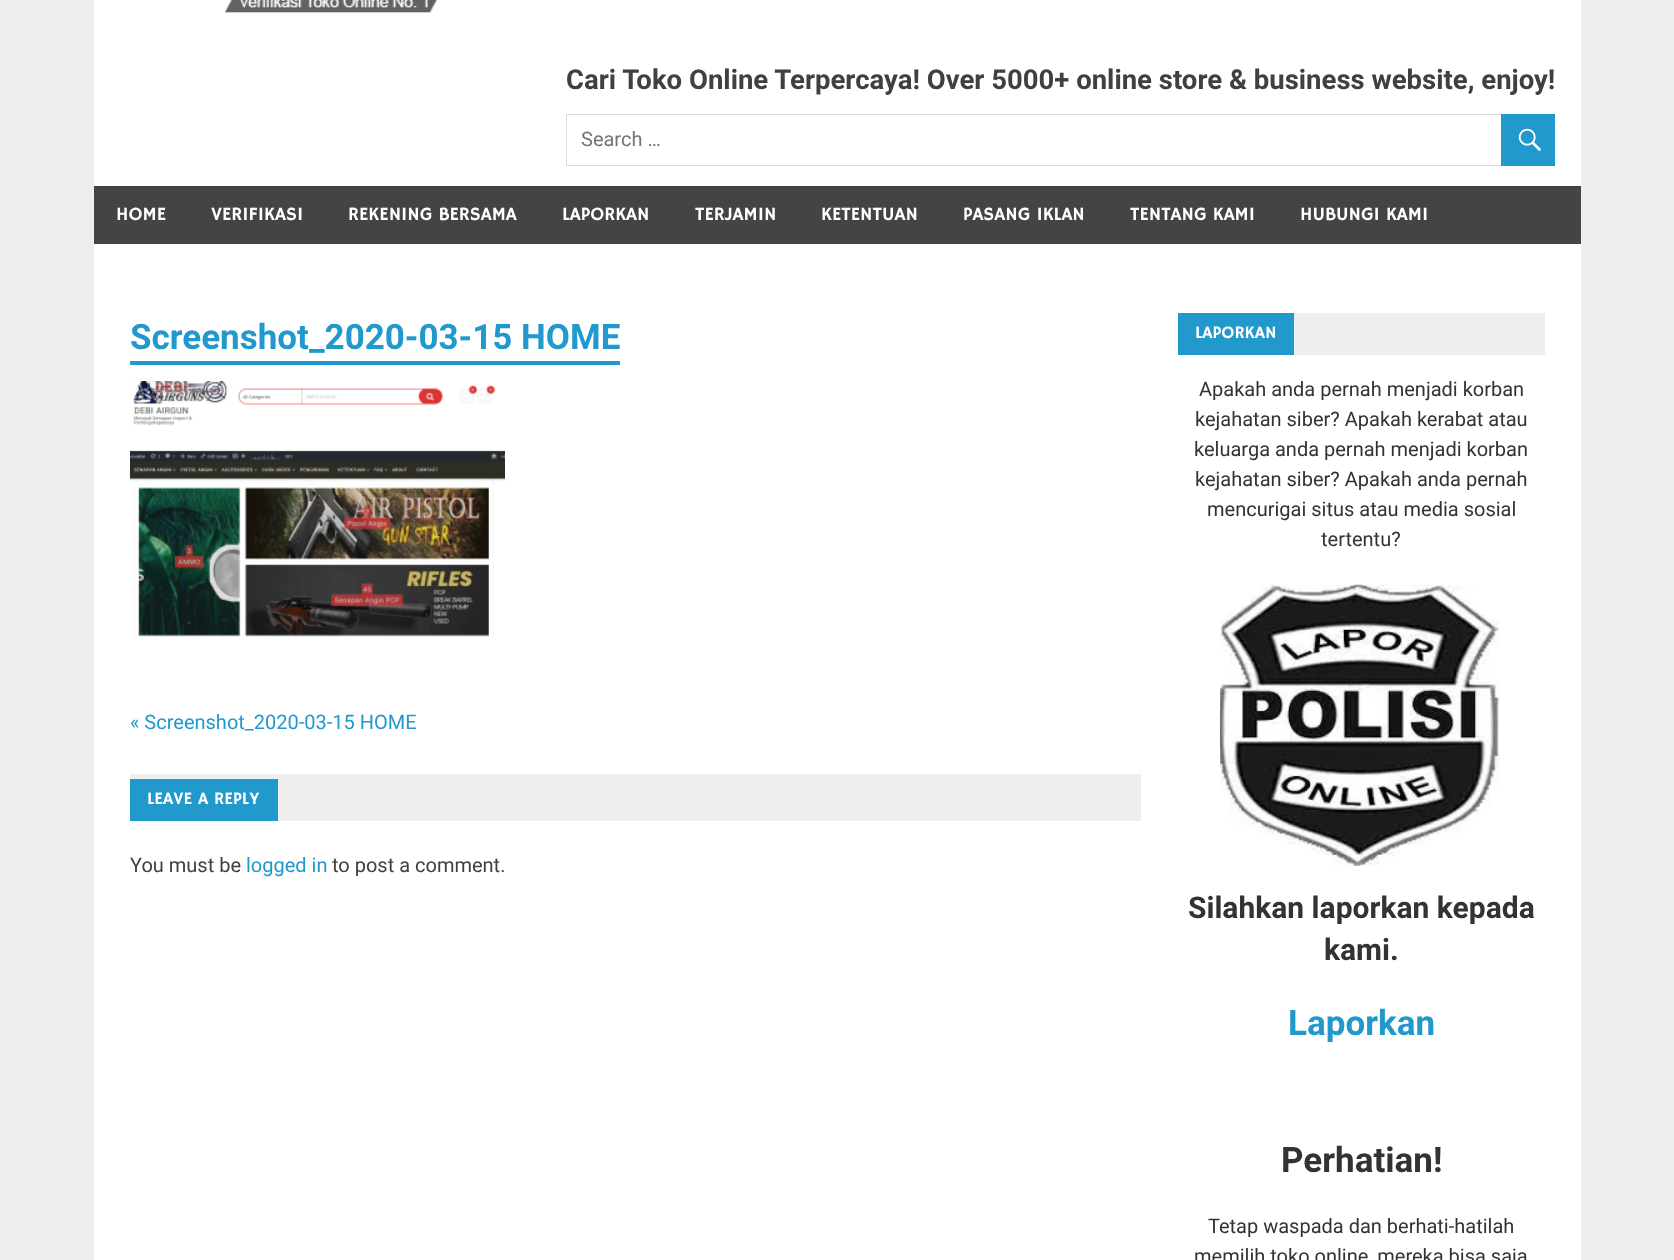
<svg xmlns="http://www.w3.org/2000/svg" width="1674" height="1260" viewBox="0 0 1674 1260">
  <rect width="100%" height="100%" fill="#eee"/>
  <path d="M94 0h1487v1260H94z" fill="#fff"/>
  <image x="224" y="0" width="214" height="13" href="img/1.png"/>
  <path d="M566.5 114.5h988v51H566.5z" fill="none" stroke="#ddd"/>
  <path d="M1501 114h54v52H1501z" fill="#29c"/>
  <image x="1518" y="128" width="24" height="24" href="img/2.png"/>
  <path d="M94 186h1487v58H94z" fill="#444"/>
  <path d="M130 361h490v4H130z" fill="#29c"/>
  <image x="130" y="381" width="375" height="257" href="img/3.png"/>
  <path d="M130 774h1011v47H130z" fill="#eee"/>
  <path d="M130 779h148v42H130z" fill="#29c"/>
  <path d="M1294 313h251v42H1294z" fill="#eee"/>
  <path d="M1178 313h116v42H1178z" fill="#29c"/>
  <image x="1220" y="584" width="280" height="282" href="img/4.png"/>
  <text x="566" y="89" font-family="Roboto" font-size="27.5" font-weight="bold" fill="#404040">Cari Toko Online Terpercaya! Over 5000+ online store &amp; business website, enjoy!</text>
  <text x="581" y="146" font-family="Roboto" font-size="20" fill="#757575">Search …</text>
  <g font-family="Hammersmith One" font-size="18.75" fill="#fff">
    <text x="116" y="220">HOME</text>
    <text x="211" y="220">VERIFIKASI</text>
    <text x="348" y="220">REKENING BERSAMA</text>
    <text x="562" y="220">LAPORKAN</text>
    <text x="695" y="220">TERJAMIN</text>
    <text x="821" y="220">KETENTUAN</text>
    <text x="963" y="220">PASANG IKLAN</text>
    <text x="1130" y="220">TENTANG KAMI</text>
    <text x="1300" y="220">HUBUNGI KAMI</text>
  </g>
  <text x="130" y="349" font-family="Roboto" font-size="35" font-weight="bold" fill="#29c">Screenshot_2020-03-15 HOME</text>
  <text x="130" y="729" font-family="Roboto" font-size="20" fill="#29c">« Screenshot_2020-03-15 HOME</text>
  <text x="147" y="804" font-family="Hammersmith One" font-size="17.5" fill="#fff">LEAVE A REPLY</text>
  <text x="130" y="872" font-family="Roboto" font-size="20" fill="#404040">You must be</text>
  <text x="246" y="872" font-family="Roboto" font-size="20" fill="#29c">logged in</text>
  <text x="332" y="872" font-family="Roboto" font-size="20" fill="#404040">to post a comment.</text>
  <text x="1195" y="338" font-family="Hammersmith One" font-size="17.5" fill="#fff">LAPORKAN</text>
  <g font-family="Roboto" font-size="20" fill="#333">
    <text x="1199" y="396">Apakah anda pernah menjadi korban</text>
    <text x="1195" y="426">kejahatan siber? Apakah kerabat atau</text>
    <text x="1194" y="456">keluarga anda pernah menjadi korban</text>
    <text x="1195" y="486">kejahatan siber? Apakah anda pernah</text>
    <text x="1207" y="516">mencurigai situs atau media sosial</text>
    <text x="1321" y="546">tertentu?</text>
  </g>
  <g font-family="Roboto" font-size="30" font-weight="bold" fill="#333">
    <text x="1188" y="918">Silahkan laporkan kepada</text>
    <text x="1324" y="960">kami.</text>
  </g>
  <text x="1288" y="1035" font-family="Roboto" font-size="35" font-weight="bold" fill="#29c">Laporkan</text>
  <text x="1281" y="1172" font-family="Roboto" font-size="35" font-weight="bold" fill="#333">Perhatian!</text>
  <g font-family="Roboto" font-size="20" fill="#333">
    <text x="1208" y="1233">Tetap waspada dan berhati-hatilah</text>
    <text x="1194" y="1263">memilih toko online, mereka bisa saja</text>
  </g>
</svg>
